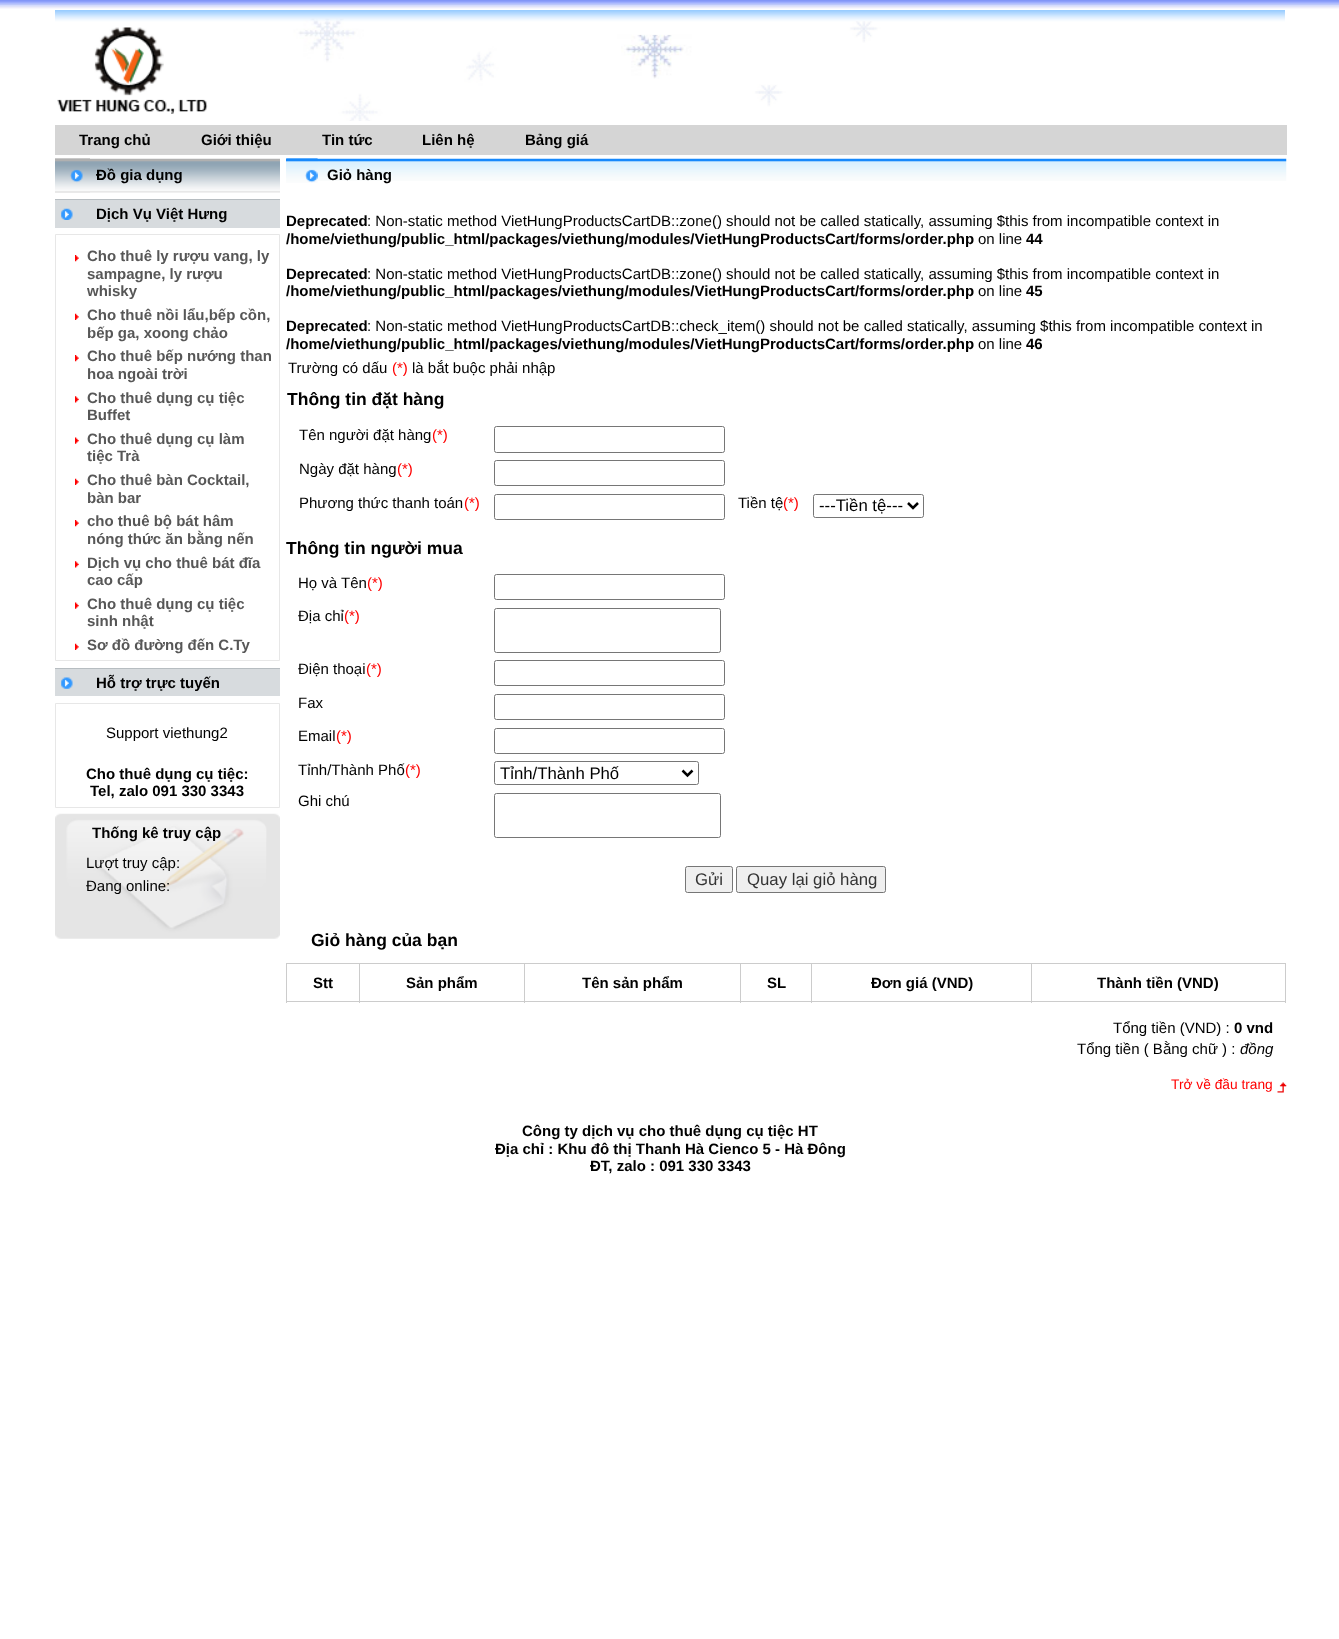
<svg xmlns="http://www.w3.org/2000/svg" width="1339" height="1639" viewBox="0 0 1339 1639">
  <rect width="100%" height="100%" fill="#fff"/>
  <image x="0" y="0" width="1339" height="9" href="img/1.png"/>
  <image x="55" y="10" width="1230" height="111" href="img/2.png"/>
  <path d="M55 125h1232v30H55z" fill="#d5d5d5"/>
  <image x="55" y="158" width="225" height="35" href="img/3.png"/>
  <image x="55" y="159" width="35" height="34" href="img/4.png"/>
  <path d="M55 158h35v1H55z" fill="#c9c9c9"/>
  <path d="M55 200h225v28H55z" fill="#d7dbde"/>
  <image x="61" y="208" width="12" height="12" href="img/5.png"/>
  <path d="M55 199h225v1H55z" fill="#b7bdc1"/>
  <path d="M55.5 234.5h224v426H55.5z" fill="none" stroke="#e7e7e7"/>
  <image x="75" y="255" width="4" height="7" href="img/6.png"/>
  <image x="75" y="313" width="4" height="7" href="img/7.png"/>
  <image x="75" y="355" width="4" height="7" href="img/6.png"/>
  <image x="75" y="396" width="4" height="7" href="img/8.png"/>
  <image x="75" y="437" width="4" height="7" href="img/9.png"/>
  <image x="75" y="478" width="4" height="7" href="img/7.png"/>
  <image x="75" y="520" width="4" height="7" href="img/6.png"/>
  <image x="75" y="561" width="4" height="7" href="img/8.png"/>
  <image x="75" y="602" width="4" height="7" href="img/9.png"/>
  <image x="75" y="643" width="4" height="7" href="img/7.png"/>
  <path d="M55 669h225v27H55z" fill="#d7dbde"/>
  <image x="61" y="677" width="12" height="12" href="img/10.png"/>
  <path d="M55 668h225v1H55z" fill="#b7bdc1"/>
  <path d="M55.5 703.5h224v104H55.5z" fill="none" stroke="#e7e7e7"/>
  <image x="55" y="813" width="225" height="126" href="img/11.png"/>
  <image x="286" y="158" width="1001" height="23" href="img/12.png"/>
  <image x="286" y="158" width="32" height="25" href="img/13.png"/>
  <image x="286" y="158" width="32" height="21" href="img/14.png"/>
  <image x="286" y="158" width="32" height="21" href="img/15.png"/>
  <rect x="494.5" y="426.5" width="230" height="26" rx="2" fill="none" stroke="#767676"/>
  <rect x="494.5" y="460.5" width="230" height="25" rx="2" fill="none" stroke="#767676"/>
  <rect x="494.5" y="494.5" width="230" height="25" rx="2" fill="none" stroke="#767676"/>
  <rect x="813.5" y="494.5" width="110" height="23" rx="2" fill="none" stroke="#767676"/>
  <path d="M908 503L913 508L918 503" fill="none" stroke="#000" stroke-width="2.5"/>
  <rect x="494.5" y="574.5" width="230" height="25" rx="2" fill="none" stroke="#767676"/>
  <rect x="494.5" y="608.5" width="226" height="44" rx="2" fill="none" stroke="#767676"/>
  <rect x="494.5" y="660.5" width="230" height="25" rx="2" fill="none" stroke="#767676"/>
  <rect x="494.5" y="694.5" width="230" height="25" rx="2" fill="none" stroke="#767676"/>
  <rect x="494.5" y="728.5" width="230" height="25" rx="2" fill="none" stroke="#767676"/>
  <rect x="494.5" y="761.5" width="204" height="23" rx="2" fill="none" stroke="#767676"/>
  <path d="M682.5 770.5L687.5 775.5L692.5 770.5" fill="none" stroke="#000" stroke-width="2.5"/>
  <rect x="494.5" y="793.5" width="226" height="44" rx="2" fill="none" stroke="#767676"/>
  <rect x="685.5" y="866.5" width="47" height="26" rx="2" fill="#efefef" stroke="#767676"/>
  <rect x="736.5" y="866.5" width="149" height="26" rx="2" fill="#efefef" stroke="#767676"/>
  <path d="M286 963h1000v1H286z" fill="#ccc"/>
  <path d="M1285 963h1v40H1285z" fill="#ccc"/>
  <path d="M286 1001h1000v1H286z" fill="#ccc"/>
  <path d="M286 963h1v40H286z" fill="#ccc"/>
  <path d="M359 963h1v40H359z" fill="#ccc"/>
  <path d="M524 963h1v40H524z" fill="#ccc"/>
  <path d="M740 963h1v40H740z" fill="#ccc"/>
  <path d="M811 963h1v40H811z" fill="#ccc"/>
  <path d="M1031 963h1v40H1031z" fill="#ccc"/>
  <image x="1277" y="1082" width="10" height="11" href="img/16.png"/>
  <g font-family="Liberation Sans" font-size="15" font-weight="bold" fill="#000">
    <text x="79" y="145">Trang chủ</text>
    <text x="201" y="145">Giới thiệu</text>
    <text x="322" y="145">Tin tức</text>
    <text x="422" y="145">Liên hệ</text>
    <text x="525" y="145">Bảng giá</text>
    <text x="96" y="180">Đồ gia dụng</text>
    <text x="96" y="219">Dịch Vụ Việt Hưng</text>
  </g>
  <g font-family="Liberation Sans" font-size="15" font-weight="bold" fill="#575757">
    <text x="87" y="261">Cho thuê ly rượu vang, ly</text>
    <text x="87" y="279">sampagne, ly rượu</text>
    <text x="87" y="296">whisky</text>
    <text x="87" y="320">Cho thuê nồi lẩu,bếp cồn,</text>
    <text x="87" y="338">bếp ga, xoong chảo</text>
    <text x="87" y="361">Cho thuê bếp nướng than</text>
    <text x="87" y="379">hoa ngoài trời</text>
    <text x="87" y="403">Cho thuê dụng cụ tiệc</text>
    <text x="87" y="420">Buffet</text>
    <text x="87" y="444">Cho thuê dụng cụ làm</text>
    <text x="87" y="461">tiệc Trà</text>
    <text x="87" y="485">Cho thuê bàn Cocktail,</text>
    <text x="87" y="503">bàn bar</text>
    <text x="87" y="526">cho thuê bộ bát hâm</text>
    <text x="87" y="544">nóng thức ăn bằng nến</text>
    <text x="87" y="568">Dịch vụ cho thuê bát đĩa</text>
    <text x="87" y="585">cao cấp</text>
    <text x="87" y="609">Cho thuê dụng cụ tiệc</text>
    <text x="87" y="626">sinh nhật</text>
    <text x="87" y="650">Sơ đồ đường đến C.Ty</text>
  </g>
  <text x="96" y="688" font-family="Liberation Sans" font-size="15" font-weight="bold" fill="#000">Hỗ trợ trực tuyến</text>
  <text x="106" y="738" font-family="Liberation Sans" font-size="15" fill="#000">Support viethung2</text>
  <g font-family="Liberation Sans" font-size="15" font-weight="bold" fill="#000">
    <text x="86" y="779">Cho thuê dụng cụ tiệc:</text>
    <text x="90" y="796">Tel, zalo 091 330 3343</text>
    <text x="92" y="838">Thống kê truy cập</text>
  </g>
  <g font-family="Liberation Sans" font-size="15" fill="#000">
    <text x="86" y="868">Lượt truy cập:</text>
    <text x="86" y="891">Đang online:</text>
  </g>
  <g font-family="Liberation Sans" font-size="15" font-weight="bold" fill="#000">
    <text x="327" y="180">Giỏ hàng</text>
    <text x="286" y="226">Deprecated</text>
  </g>
  <text x="367" y="226" font-family="Liberation Sans" font-size="15" fill="#000">: Non-static method VietHungProductsCartDB::zone() should not be called statically, assuming $this from incompatible context in</text>
  <text x="286" y="244" font-family="Liberation Sans" font-size="15" font-weight="bold" fill="#000">/home/viethung/public_html/packages/viethung/modules/VietHungProductsCart/forms/order.php</text>
  <text x="978" y="244" font-family="Liberation Sans" font-size="15" fill="#000">on line</text>
  <g font-family="Liberation Sans" font-size="15" font-weight="bold" fill="#000">
    <text x="1026" y="244">44</text>
    <text x="286" y="279">Deprecated</text>
  </g>
  <text x="367" y="279" font-family="Liberation Sans" font-size="15" fill="#000">: Non-static method VietHungProductsCartDB::zone() should not be called statically, assuming $this from incompatible context in</text>
  <text x="286" y="296" font-family="Liberation Sans" font-size="15" font-weight="bold" fill="#000">/home/viethung/public_html/packages/viethung/modules/VietHungProductsCart/forms/order.php</text>
  <text x="978" y="296" font-family="Liberation Sans" font-size="15" fill="#000">on line</text>
  <g font-family="Liberation Sans" font-size="15" font-weight="bold" fill="#000">
    <text x="1026" y="296">45</text>
    <text x="286" y="331">Deprecated</text>
  </g>
  <text x="367" y="331" font-family="Liberation Sans" font-size="15" fill="#000">: Non-static method VietHungProductsCartDB::check_item() should not be called statically, assuming $this from incompatible context in</text>
  <text x="286" y="349" font-family="Liberation Sans" font-size="15" font-weight="bold" fill="#000">/home/viethung/public_html/packages/viethung/modules/VietHungProductsCart/forms/order.php</text>
  <text x="978" y="349" font-family="Liberation Sans" font-size="15" fill="#000">on line</text>
  <text x="1026" y="349" font-family="Liberation Sans" font-size="15" font-weight="bold" fill="#000">46</text>
  <text x="288" y="373" font-family="Liberation Sans" font-size="15" fill="#000">Trường có dấu</text>
  <text x="392" y="373" font-family="Liberation Sans" font-size="15" fill="#f00">(*)</text>
  <text x="412" y="373" font-family="Liberation Sans" font-size="15" fill="#000">là bắt buộc phải nhập</text>
  <text x="287" y="405" font-family="Liberation Sans" font-size="17.5" font-weight="bold" fill="#000">Thông tin đặt hàng</text>
  <text x="299" y="440" font-family="Liberation Sans" font-size="15" fill="#000">Tên người đặt hàng</text>
  <text x="432" y="440" font-family="Liberation Sans" font-size="15" fill="#f00">(*)</text>
  <text x="299" y="474" font-family="Liberation Sans" font-size="15" fill="#000">Ngày đặt hàng</text>
  <text x="397" y="474" font-family="Liberation Sans" font-size="15" fill="#f00">(*)</text>
  <text x="299" y="508" font-family="Liberation Sans" font-size="15" fill="#000">Phương thức thanh toán</text>
  <text x="464" y="508" font-family="Liberation Sans" font-size="15" fill="#f00">(*)</text>
  <text x="738" y="508" font-family="Liberation Sans" font-size="15" fill="#000">Tiền tệ</text>
  <text x="783" y="508" font-family="Liberation Sans" font-size="15" fill="#f00">(*)</text>
  <text x="819" y="511" font-family="Liberation Sans" font-size="16.75" fill="#000">---Tiền tệ---</text>
  <text x="286" y="554" font-family="Liberation Sans" font-size="17.5" font-weight="bold" fill="#000">Thông tin người mua</text>
  <text x="298" y="588" font-family="Liberation Sans" font-size="15" fill="#000">Họ và Tên</text>
  <text x="367" y="588" font-family="Liberation Sans" font-size="15" fill="#f00">(*)</text>
  <text x="298" y="621" font-family="Liberation Sans" font-size="15" fill="#000">Địa chỉ</text>
  <text x="344" y="621" font-family="Liberation Sans" font-size="15" fill="#f00">(*)</text>
  <text x="298" y="674" font-family="Liberation Sans" font-size="15" fill="#000">Điện thoại</text>
  <text x="366" y="674" font-family="Liberation Sans" font-size="15" fill="#f00">(*)</text>
  <g font-family="Liberation Sans" font-size="15" fill="#000">
    <text x="298" y="708">Fax</text>
    <text x="298" y="741">Email</text>
  </g>
  <text x="336" y="741" font-family="Liberation Sans" font-size="15" fill="#f00">(*)</text>
  <text x="298" y="775" font-family="Liberation Sans" font-size="15" fill="#000">Tỉnh/Thành Phố</text>
  <text x="405" y="775" font-family="Liberation Sans" font-size="15" fill="#f00">(*)</text>
  <text x="500" y="779" font-family="Liberation Sans" font-size="16.75" fill="#000">Tỉnh/Thành Phố</text>
  <text x="298" y="806" font-family="Liberation Sans" font-size="15" fill="#000">Ghi chú</text>
  <g font-family="Liberation Sans" font-size="16.75" fill="#333">
    <text x="695" y="885">Gửi</text>
    <text x="747" y="885">Quay lại giỏ hàng</text>
  </g>
  <text x="311" y="946" font-family="Liberation Sans" font-size="17.5" font-weight="bold" fill="#000">Giỏ hàng của bạn</text>
  <g font-family="Liberation Sans" font-size="15" font-weight="bold" fill="#000">
    <text x="313" y="988">Stt</text>
    <text x="406" y="988">Sản phẩm</text>
    <text x="582" y="988">Tên sản phẩm</text>
    <text x="767" y="988">SL</text>
    <text x="871" y="988">Đơn giá (VND)</text>
    <text x="1097" y="988">Thành tiền (VND)</text>
  </g>
  <text x="1113" y="1033" font-family="Liberation Sans" font-size="15" fill="#000">Tổng tiền (VND) :</text>
  <text x="1234" y="1033" font-family="Liberation Sans" font-size="15" font-weight="bold" fill="#000">0 vnd</text>
  <text x="1077" y="1054" font-family="Liberation Sans" font-size="15" fill="#000">Tổng tiền ( Bằng chữ ) :</text>
  <text x="1240" y="1054" font-family="Liberation Sans" font-size="15" font-style="italic" fill="#000">đồng</text>
  <text x="1171" y="1089" font-family="Liberation Sans" font-size="13.75" fill="#f00">Trở về đầu trang</text>
  <g font-family="Liberation Sans" font-size="15" font-weight="bold" fill="#000">
    <text x="522" y="1136">Công ty dịch vụ cho thuê dụng cụ tiệc HT</text>
    <text x="495" y="1154">Địa chỉ : Khu đô thị Thanh Hà Cienco 5 - Hà Đông</text>
    <text x="590" y="1171">ĐT, zalo : 091 330 3343</text>
  </g>
</svg>
